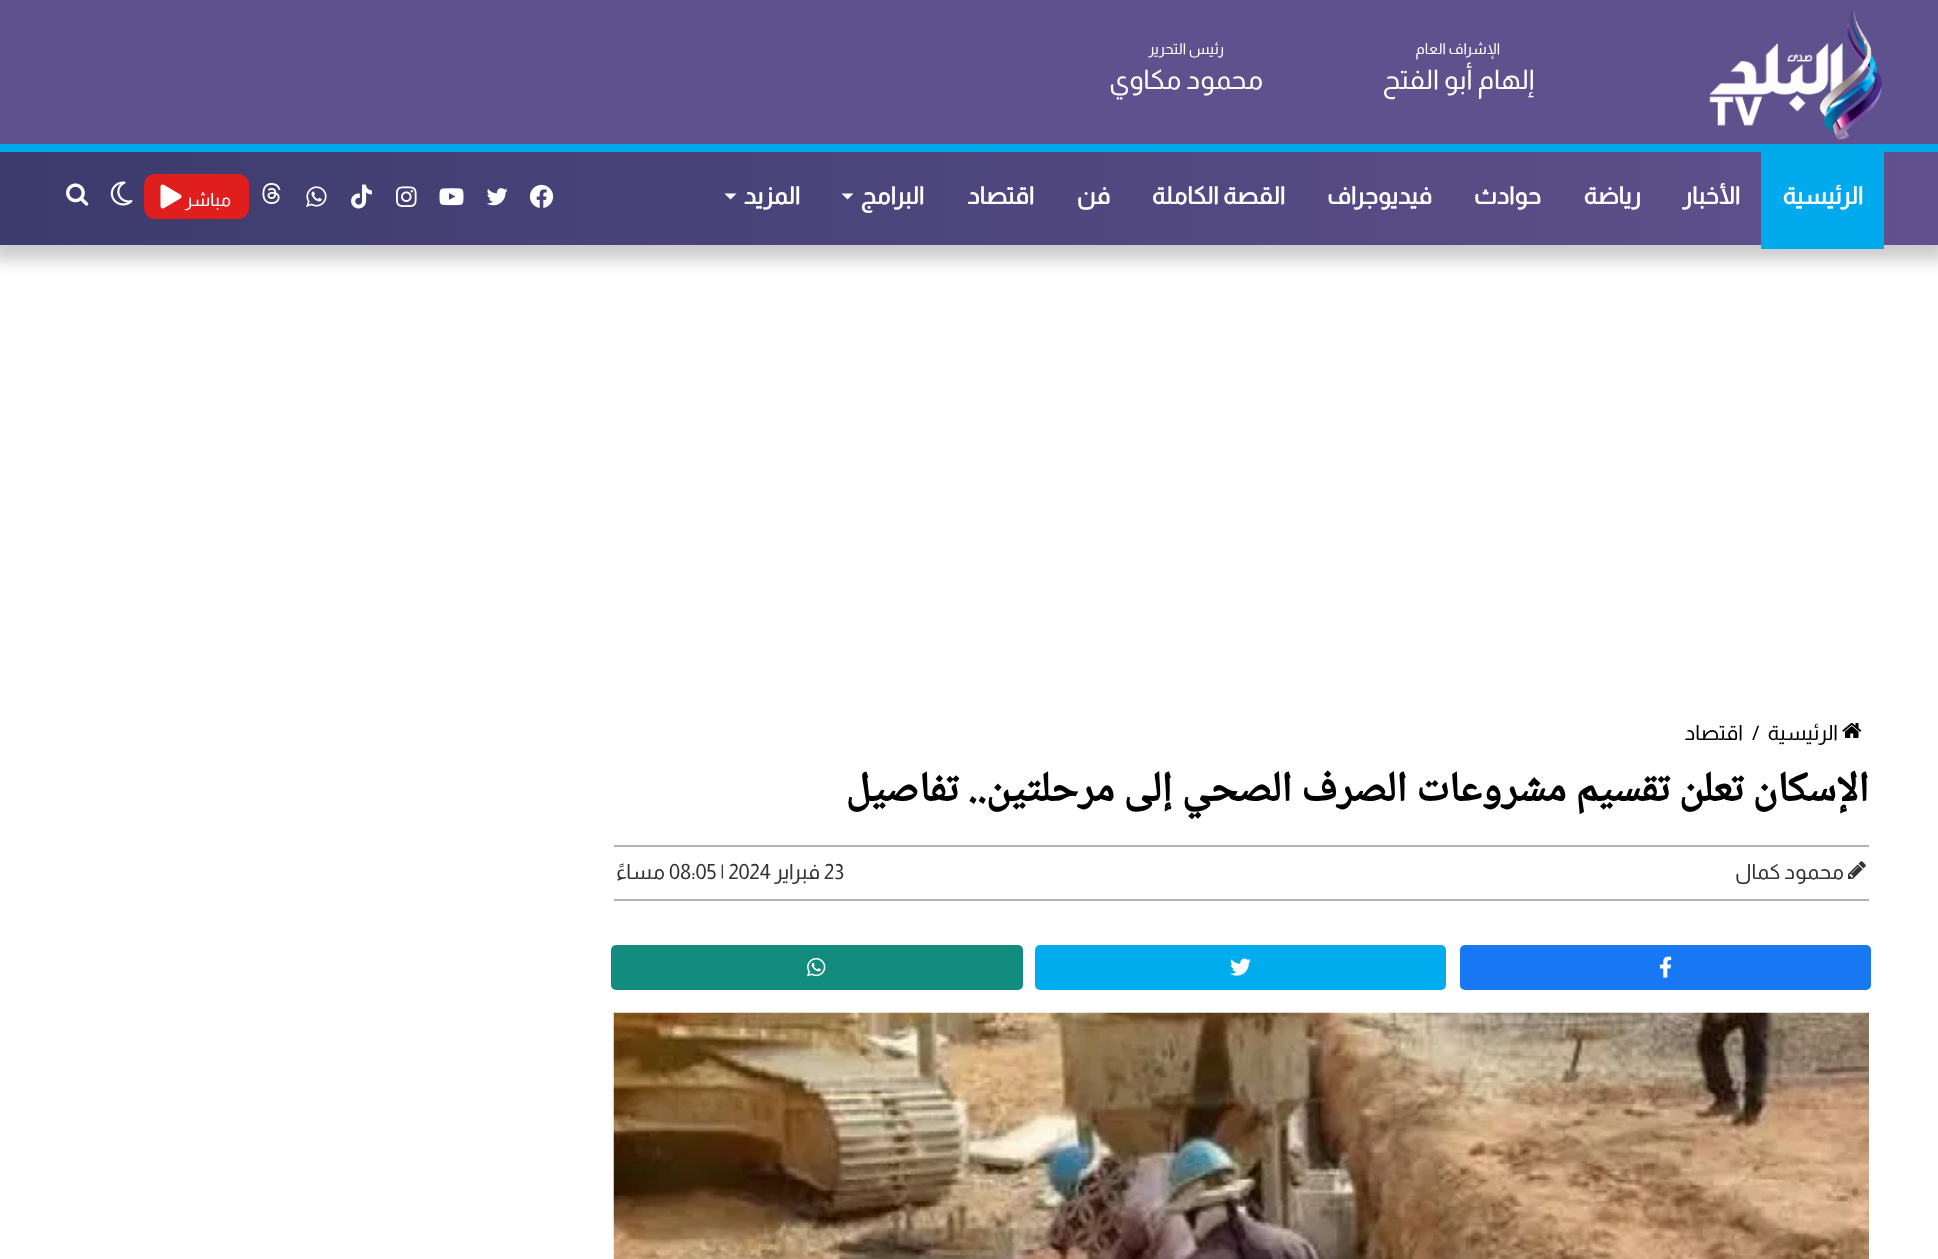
<svg xmlns="http://www.w3.org/2000/svg" width="1938" height="1259" viewBox="0 0 1938 1259">
  <defs>
    <linearGradient id="g1" gradientUnits="userSpaceOnUse" x1="0" y1="198" x2="1938" y2="198"><stop offset="0" stop-color="#3c3b6d"/><stop offset="1" stop-color="#60518e"/></linearGradient>
  </defs>
  <rect width="100%" height="100%" fill="#fff"/>
  <path d="M-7 0h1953v260H-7z" fill="#00000033" filter="blur(7.5px)"/>
  <path d="M0 0h1938v144H0z" fill="#5f508e"/>
  <image x="1709" y="8" width="173" height="132" href="img/1.png"/>
  <path d="M0 152h1938v93H0z" fill="url(#g1)"/>
  <path d="M0 144h1938v8H0z" fill="#00aaec"/>
  <path d="M1761 152h123v97H1761z" fill="#00aaec"/>
  <path d="M841.5 193.5H853.5L847.5 199.5Z" fill="#fff"/>
  <path d="M724.5 193.5H736.5L730.5 199.5Z" fill="#fff"/>
  <image x="529" y="184" width="25" height="24" href="img/2.png"/>
  <image x="486" y="188" width="22" height="18" href="img/3.png"/>
  <image x="439" y="188" width="25" height="18" href="img/4.png"/>
  <image x="396" y="186" width="21" height="21" href="img/5.png"/>
  <image x="351" y="184" width="21" height="25" href="img/6.png"/>
  <image x="306" y="186" width="21" height="21" href="img/7.png"/>
  <image x="262" y="183" width="19" height="21" href="img/8.png"/>
  <rect x="144" y="174" width="105" height="45" rx="11" fill="#e11e1e"/>
  <image x="160" y="184" width="22" height="25" href="img/9.png"/>
  <image x="110" y="181" width="23" height="25" href="img/10.png"/>
  <image x="66" y="183" width="23" height="23" href="img/11.png"/>
  <image x="1842" y="723" width="20" height="15" href="img/12.png"/>
  <path d="M614 845h1255v2H614z" fill="#b2b2b2"/>
  <path d="M614 899h1255v2H614z" fill="#b2b2b2"/>
  <image x="1848" y="861" width="18" height="18" href="img/13.png"/>
  <rect x="1460" y="945" width="411" height="45" rx="5" fill="#1877f2"/>
  <image x="1659" y="956" width="13" height="22" href="img/14.png"/>
  <rect x="1035" y="945" width="411" height="45" rx="5" fill="#00acee"/>
  <image x="1230" y="958" width="21" height="18" href="img/15.png"/>
  <rect x="611" y="945" width="412" height="45" rx="5" fill="#128c7e"/>
  <image x="807" y="957" width="19" height="20" href="img/16.png"/>
  <image x="613" y="1012" width="1256" height="247" href="img/17.png"/>
  <text x="1500" y="54" font-family="Almarai" font-size="15" direction="rtl" fill="#fff">الإشراف العام</text>
  <text x="1534" y="89" font-family="Almarai" font-size="27" direction="rtl" fill="#fff">إلهام أبو الفتح</text>
  <text x="1224" y="54" font-family="Almarai" font-size="15" direction="rtl" fill="#fff">رئيس التحرير</text>
  <text x="1263" y="89" font-family="Almarai" font-size="27" direction="rtl" fill="#fff">محمود مكاوي</text>
  <g font-family="Almarai" font-size="24" font-weight="bold" direction="rtl" fill="#fff">
    <text x="1863" y="204">الرئيسية</text>
    <text x="1740" y="204">الأخبار</text>
    <text x="1641" y="204">رياضة</text>
    <text x="1541" y="204">حوادث</text>
    <text x="1432" y="204">فيديوجراف</text>
    <text x="1285" y="204">القصة الكاملة</text>
    <text x="1110" y="204">فن</text>
    <text x="1034" y="204">اقتصاد</text>
    <text x="924" y="204">البرامج</text>
    <text x="800" y="204">المزيد</text>
  </g>
  <text x="231" y="206" font-family="Almarai" font-size="18" direction="rtl" fill="#fff">مباشر</text>
  <text x="1838" y="740" font-family="Almarai" font-size="21" direction="rtl" fill="#000">الرئيسية</text>
  <text x="1752" y="740" font-family="Almarai" font-size="21" fill="#000">/</text>
  <text x="1743" y="740" font-family="Almarai" font-size="21" direction="rtl" fill="#000">اقتصاد</text>
  <text x="1869" y="801" font-family="Noto Naskh Arabic" font-size="42" font-weight="bold" direction="rtl" fill="#000">الإسكان تعلن تقسيم مشروعات الصرف الصحي إلى مرحلتين.. تفاصيل</text>
  <text x="1844" y="879" font-family="Almarai" font-size="21" direction="rtl" fill="#333">محمود كمال</text>
  <text x="824" y="879" font-family="Almarai" font-size="21" fill="#333">23</text>
  <text x="820" y="879" font-family="Almarai" font-size="21" direction="rtl" fill="#333">فبراير</text>
  <text x="669" y="879" font-family="Almarai" font-size="21" fill="#333">08:05 | 2024</text>
  <text x="665" y="879" font-family="Almarai" font-size="21" direction="rtl" fill="#333">مساءً</text>
</svg>
